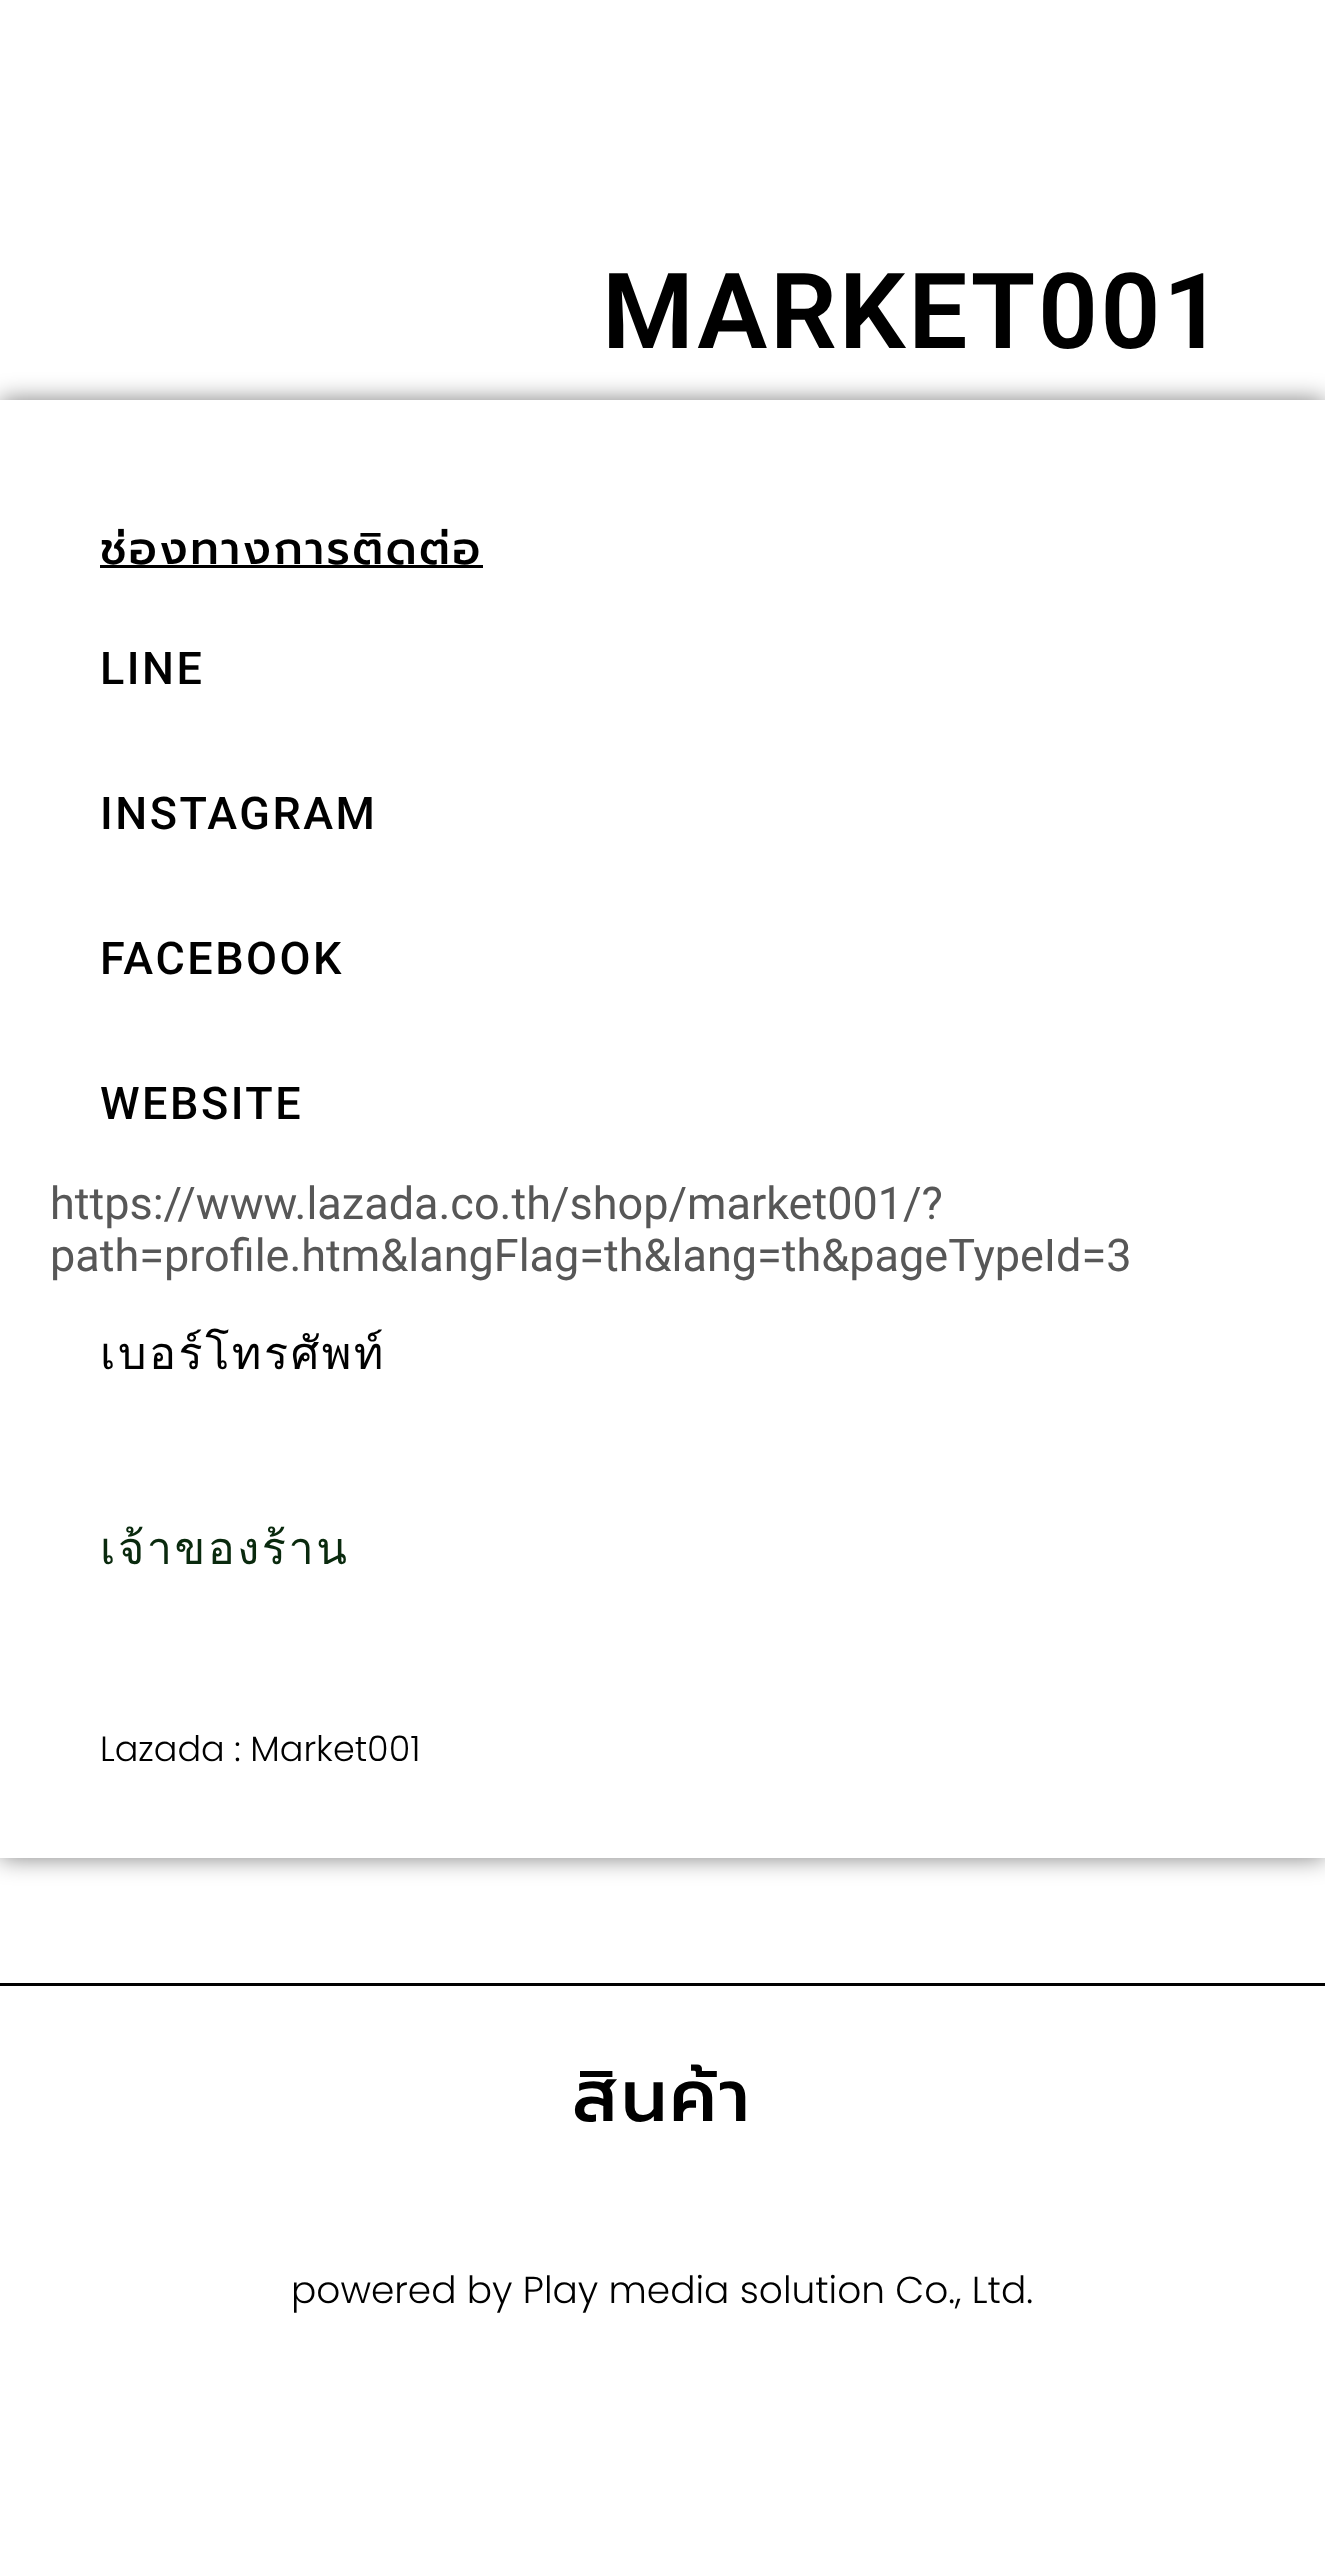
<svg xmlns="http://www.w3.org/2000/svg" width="1325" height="2563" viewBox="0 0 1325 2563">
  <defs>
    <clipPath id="clip1"><path d="M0 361H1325V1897H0ZM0 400H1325V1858H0Z" clip-rule="evenodd"/></clipPath>
  </defs>
  <rect width="100%" height="100%" fill="#fff"/>
  <g clip-path="url(#clip1)">
    <path d="M0 400h1325v1458H0z" fill="#00000080" filter="blur(12.5px)"/>
  </g>
  <path d="M100 565h383v3H100z" fill="#000"/>
  <path d="M0 1983h1325v3H0z" fill="#000"/>
  <text x="602" y="348" font-family="Roboto" font-size="105" font-weight="600" letter-spacing="2.5" fill="#000">MARKET001</text>
  <text x="100" y="564" font-family="Prompt" font-size="45" font-weight="500" letter-spacing="2.5" fill="#000">ช่องทางการติดต่อ</text>
  <g font-family="Roboto" font-size="45" font-weight="500" letter-spacing="2.5" fill="#000">
    <text x="100" y="684">LINE</text>
    <text x="100" y="829">INSTAGRAM</text>
    <text x="100" y="974">FACEBOOK</text>
    <text x="100" y="1119">WEBSITE</text>
  </g>
  <g font-family="Roboto" font-size="45" fill="#575757">
    <text x="50" y="1219">https://www.lazada.co.th/shop/market001/?</text>
    <text x="50" y="1271">path=profile.htm&amp;langFlag=th&amp;lang=th&amp;pageTypeId=3</text>
  </g>
  <text x="100" y="1369" font-family="Loma" font-size="45" letter-spacing="2.5" fill="#000">เบอร์โทรศัพท์</text>
  <text x="100" y="1564" font-family="Loma" font-size="45" letter-spacing="2.5" fill="#0a2a0e">เจ้าของร้าน</text>
  <text x="100" y="1761" font-family="Poppins" font-size="35" font-weight="300" fill="#000">Lazada : Market001</text>
  <text x="572" y="2121" font-family="Prompt" font-size="72.5" font-weight="500" letter-spacing="2.5" fill="#000">สินค้า</text>
  <text x="291" y="2303" font-family="Poppins" font-size="37.5" font-weight="300" fill="#000">powered by Play media solution Co., Ltd.</text>
</svg>
